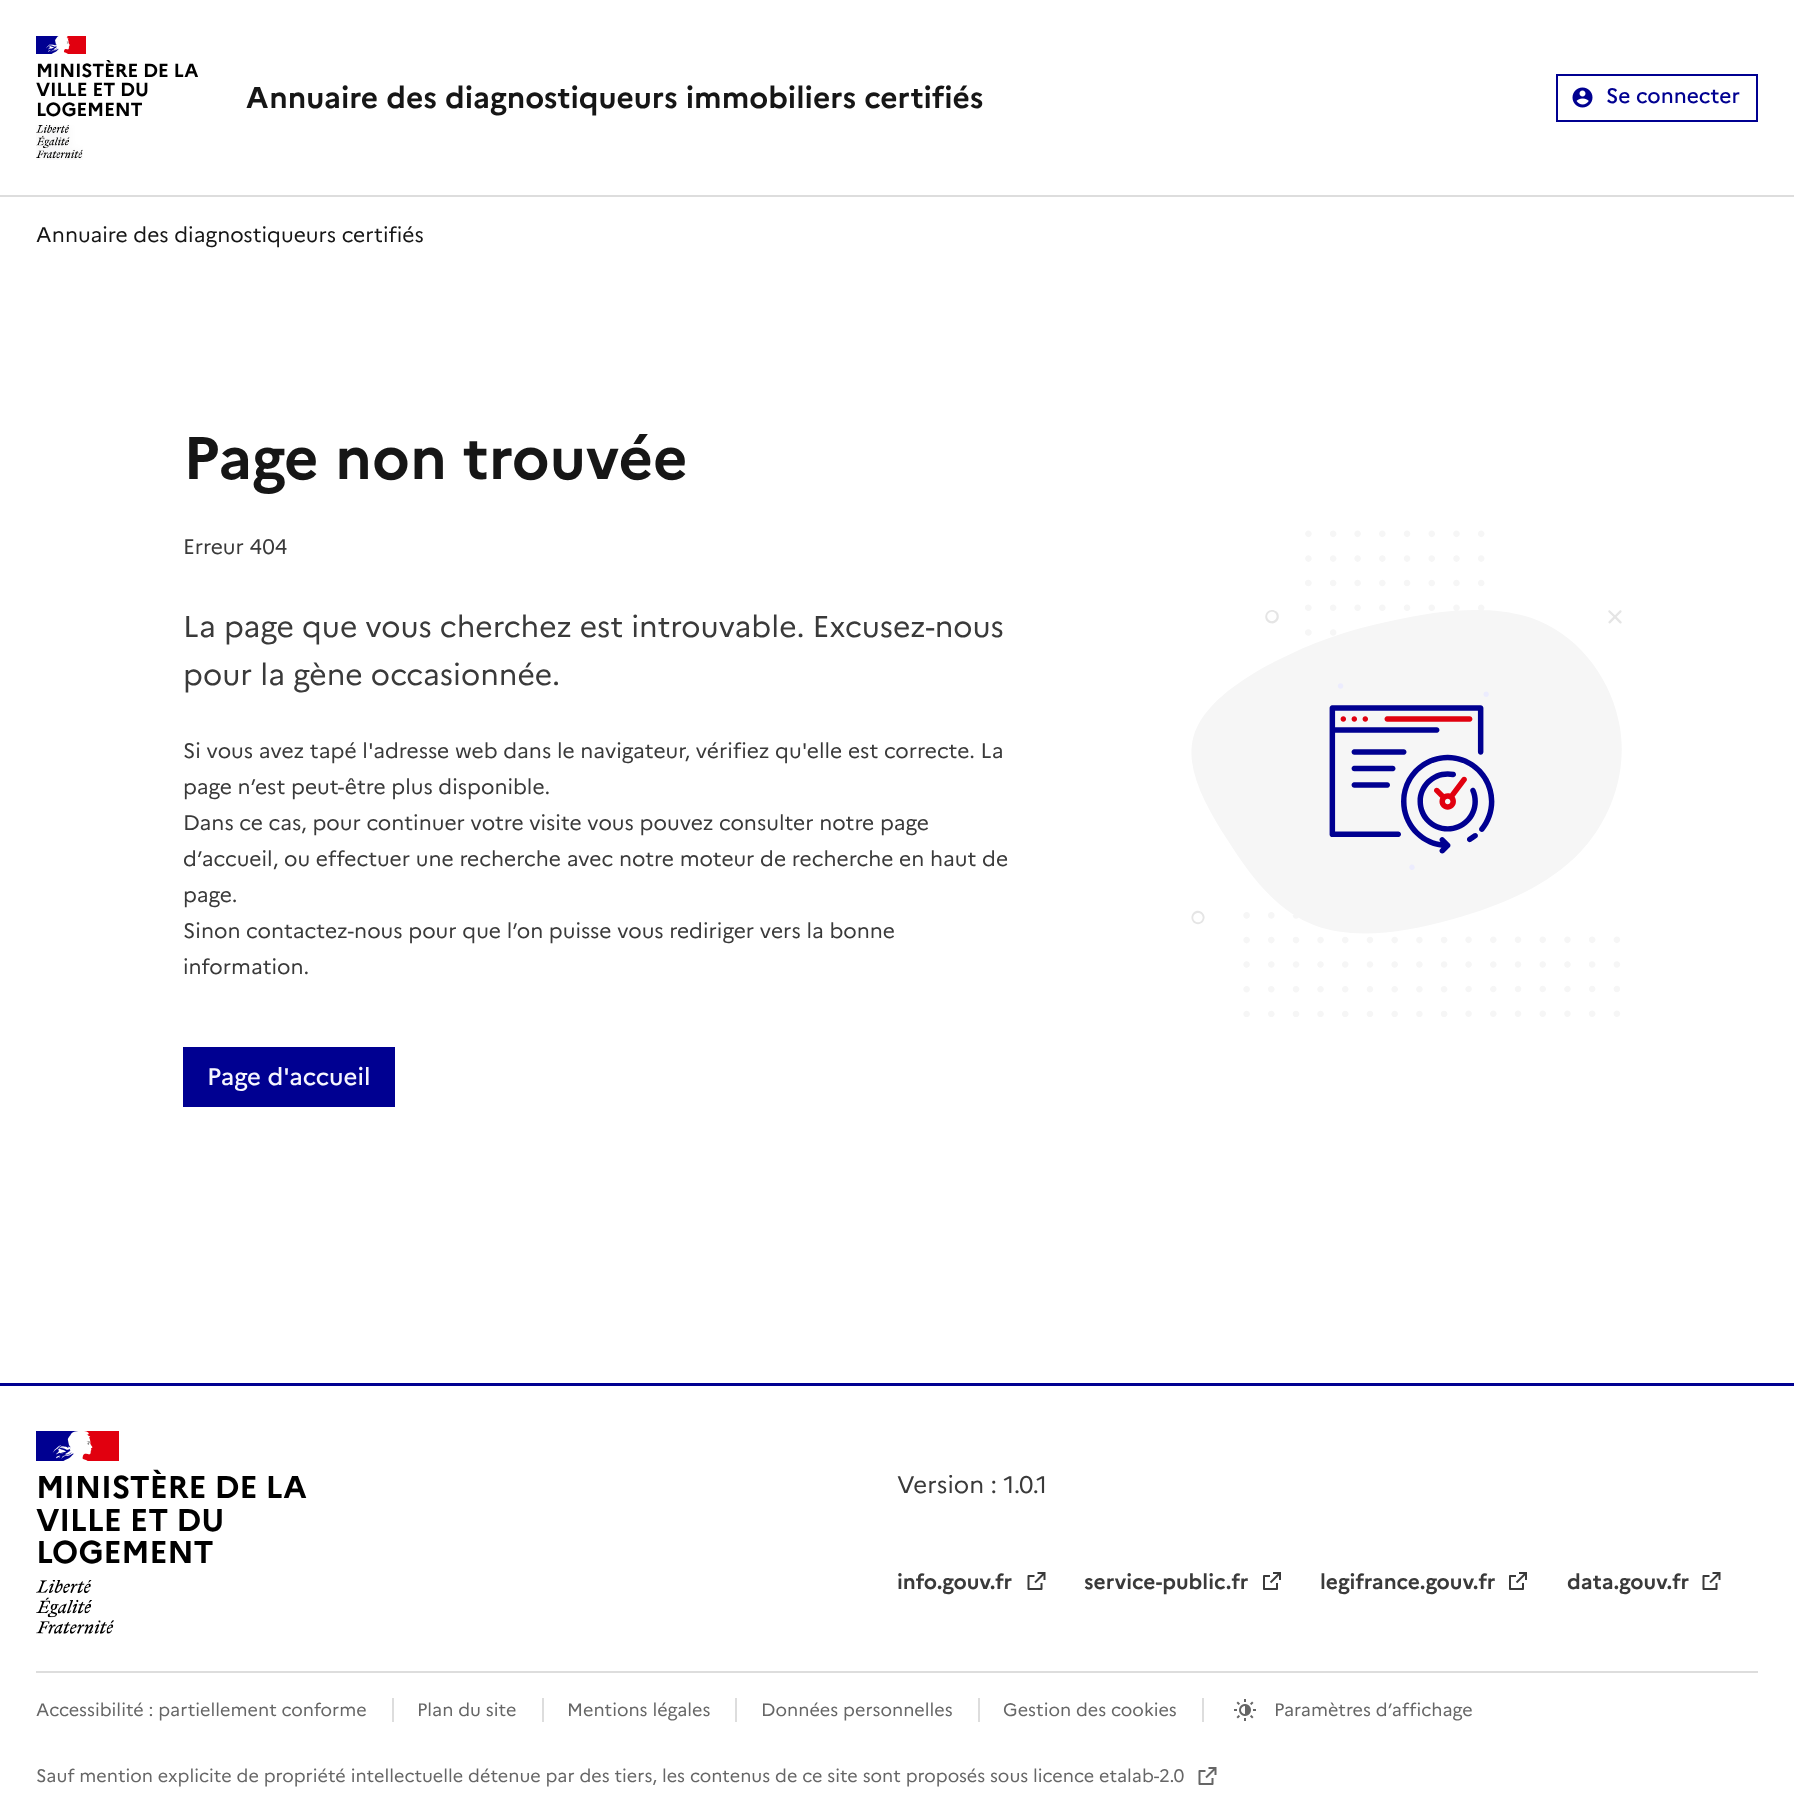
<svg xmlns="http://www.w3.org/2000/svg" width="1794" height="1814" viewBox="0 0 1794 1814">
  <rect width="100%" height="100%" fill="#fff"/>
  <path d="M36 36h23v18H36z" fill="#000091"/>
  <path d="M63 36h23v18H63z" fill="#e1000f"/>
  <image x="46" y="36" width="24" height="18" href="img/1.png"/>
  <image x="36" y="125" width="47" height="35" href="img/2.png"/>
  <path d="M1557 75h200v46H1557z" fill="none" stroke="#000091" stroke-width="2"/>
  <image x="1572" y="87" width="21" height="21" href="img/3.png"/>
  <path d="M0 195h1794v2H0z" fill="#ddd"/>
  <path d="M183 1047h212v60H183z" fill="#000091"/>
  <image x="1191" y="530" width="431" height="487" href="img/4.png"/>
  <path d="M0 1383h1794v3H0z" fill="#000091"/>
  <path d="M36 1431h42v30H36z" fill="#000091"/>
  <path d="M78 1431h41v30H78z" fill="#e1000f"/>
  <image x="52" y="1431" width="41" height="30" href="img/5.png"/>
  <image x="36" y="1580" width="78" height="54" href="img/6.png"/>
  <image x="1027" y="1572" width="19" height="18" href="img/7.png"/>
  <image x="1263" y="1572" width="18" height="18" href="img/8.png"/>
  <image x="1509" y="1572" width="18" height="18" href="img/8.png"/>
  <image x="1702" y="1572" width="19" height="18" href="img/7.png"/>
  <path d="M36 1671h1722v2H36z" fill="#ddd"/>
  <path d="M392 1698h2v24H392z" fill="#ddd"/>
  <path d="M542 1698h2v24H542z" fill="#ddd"/>
  <path d="M735 1698h2v24H735z" fill="#ddd"/>
  <path d="M978 1698h2v24H978z" fill="#ddd"/>
  <path d="M1202 1698h2v24H1202z" fill="#ddd"/>
  <image x="1234" y="1699" width="22" height="22" href="img/9.png"/>
  <image x="1198" y="1767" width="19" height="18" href="img/10.png"/>
  <g font-family="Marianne" font-size="19" font-weight="bold" letter-spacing="-0.25" fill="#000">
    <text x="36" y="77">MINISTÈRE DE LA</text>
    <text x="36" y="96">VILLE ET DU</text>
    <text x="36" y="116">LOGEMENT</text>
  </g>
  <text x="246" y="108" font-family="Marianne" font-size="30" font-weight="bold" fill="#161616">Annuaire des diagnostiqueurs immobiliers certifiés</text>
  <text x="1606" y="103" font-family="Marianne" font-size="21" font-weight="500" fill="#000091">Se connecter</text>
  <text x="36" y="242" font-family="Marianne" font-size="21" fill="#161616">Annuaire des diagnostiqueurs certifiés</text>
  <text x="183" y="479" font-family="Marianne" font-size="60" font-weight="bold" fill="#161616">Page non trouvée</text>
  <text x="183" y="554" font-family="Marianne" font-size="21" fill="#3a3a3a">Erreur 404</text>
  <g font-family="Marianne" font-size="30" fill="#3a3a3a">
    <text x="183" y="637">La page que vous cherchez est introuvable. Excusez-nous</text>
    <text x="183" y="685">pour la gène occasionnée.</text>
  </g>
  <g font-family="Marianne" font-size="21" fill="#3a3a3a">
    <text x="183" y="758">Si vous avez tapé l'adresse web dans le navigateur, vérifiez qu'elle est correcte. La</text>
    <text x="183" y="794">page n’est peut-être plus disponible.</text>
    <text x="183" y="830">Dans ce cas, pour continuer votre visite vous pouvez consulter notre page</text>
    <text x="183" y="866">d’accueil, ou effectuer une recherche avec notre moteur de recherche en haut de</text>
    <text x="183" y="902">page.</text>
    <text x="183" y="938">Sinon contactez-nous pour que l’on puisse vous rediriger vers la bonne</text>
    <text x="183" y="974">information.</text>
  </g>
  <text x="207" y="1085" font-family="Marianne" font-size="24" font-weight="500" fill="#f5f5fe">Page d'accueil</text>
  <g font-family="Marianne" font-size="31.5" font-weight="bold" letter-spacing="-0.3" fill="#000">
    <text x="36" y="1498">MINISTÈRE DE LA</text>
    <text x="36" y="1531">VILLE ET DU</text>
    <text x="36" y="1563">LOGEMENT</text>
  </g>
  <text x="897" y="1493" font-family="Marianne" font-size="24" fill="#3a3a3a">Version : 1.0.1</text>
  <g font-family="Marianne" font-size="21" font-weight="bold" fill="#3a3a3a">
    <text x="897" y="1589">info.gouv.fr</text>
    <text x="1084" y="1589">service-public.fr</text>
    <text x="1320" y="1589">legifrance.gouv.fr</text>
    <text x="1567" y="1589">data.gouv.fr</text>
  </g>
  <g font-family="Marianne" font-size="18" fill="#666">
    <text x="36" y="1716">Accessibilité : partiellement conforme</text>
    <text x="417" y="1716">Plan du site</text>
    <text x="567" y="1716">Mentions légales</text>
    <text x="761" y="1716">Données personnelles</text>
    <text x="1003" y="1716">Gestion des cookies</text>
    <text x="1274" y="1716">Paramètres d’affichage</text>
    <text x="36" y="1782">Sauf mention explicite de propriété intellectuelle détenue par des tiers, les contenus de ce site sont proposés sous licence etalab-2.0</text>
  </g>
</svg>
